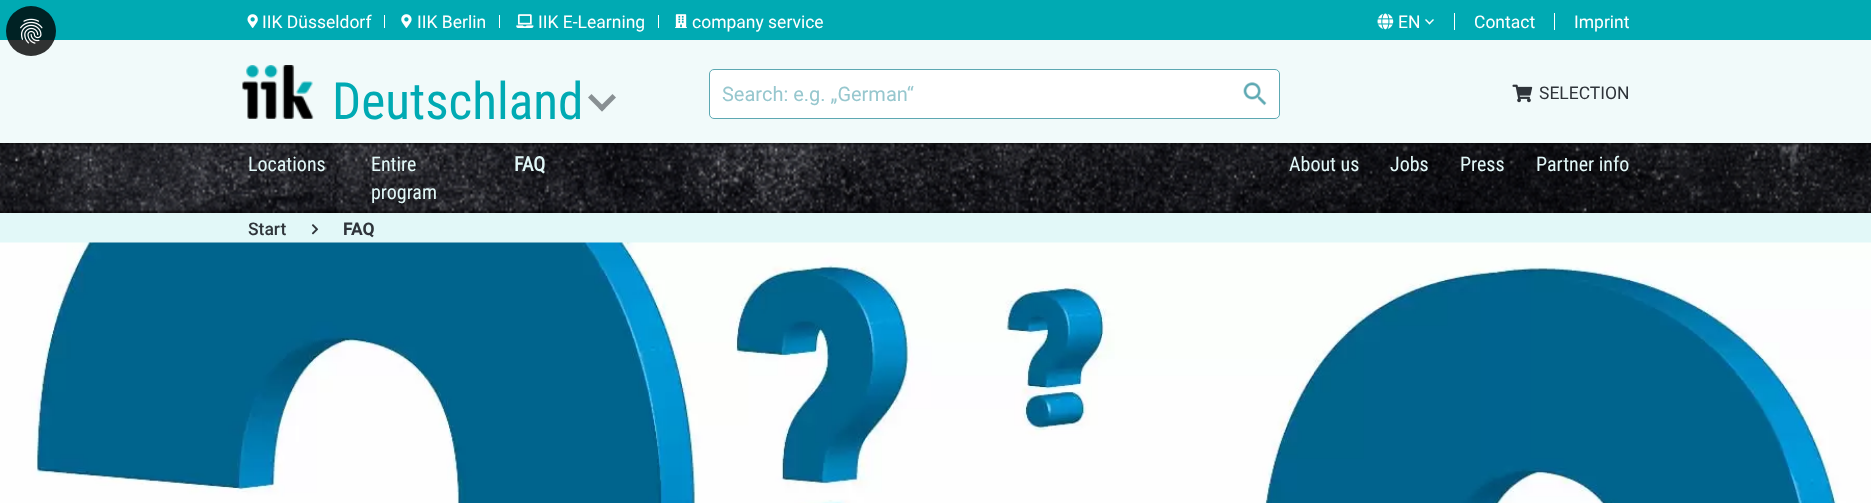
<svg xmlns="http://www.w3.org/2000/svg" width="1871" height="503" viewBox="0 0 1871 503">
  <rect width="100%" height="100%" fill="#e2f8f8"/>
  <path d="M0 0h1871v40H0z" fill="#00aab3"/>
  <path d="M0 40h1871v103H0z" fill="#f1fafa"/>
  <circle cx="31" cy="31" r="25" fill="#000000cc"/>
  <image x="20" y="18" width="23" height="26" href="img/1.png"/>
  <path d="M384 15h1v13H384z" fill="#fff"/>
  <image x="247" y="14" width="11" height="14" href="img/2.png"/>
  <path d="M499 15h1v13H499z" fill="#fff"/>
  <image x="401" y="14" width="11" height="14" href="img/3.png"/>
  <path d="M658 15h1v13H658z" fill="#fff"/>
  <image x="516" y="14" width="18" height="14" href="img/4.png"/>
  <image x="675" y="14" width="12" height="14" href="img/5.png"/>
  <path d="M1454 13h1v17H1454z" fill="#fff"/>
  <image x="1377" y="13" width="17" height="17" href="img/6.png"/>
  <path d="M1434 20L1429.5 24.5L1428.5 23.5L1433 19Z" fill="#fff"/>
  <path d="M1430.5 23.5L1429.5 24.5L1425 20L1426 19Z" fill="#fff"/>
  <path d="M1554 13h1v17H1554z" fill="#fff"/>
  <image x="242" y="65" width="72" height="54" href="img/7.png"/>
  <path d="M588 97.5L602 111.5L605.5 108L591.5 94Z" fill="#899093"/>
  <path d="M598.5 108L602 111.5L616 97.5L612.5 94Z" fill="#899093"/>
  <rect x="709.5" y="69.5" width="570" height="49" rx="4.5" fill="#fff" stroke="#5da8b2"/>
  <image x="1243" y="82" width="24" height="24" href="img/8.png"/>
  <image x="1512" y="84" width="21" height="19" href="img/9.png"/>
  <image x="0" y="143" width="1871" height="70" href="img/10.png"/>
  <image x="311" y="224" width="8" height="11" href="img/11.png"/>
  <image x="0" y="242" width="1871" height="261" href="img/12.png"/>
  <g font-family="Roboto" font-size="17.5" fill="#fff">
    <text x="262" y="28">IIK Düsseldorf</text>
    <text x="417" y="28">IIK Berlin</text>
    <text x="538" y="28">IIK E-Learning</text>
    <text x="692" y="28">company service</text>
    <text x="1398" y="28">EN</text>
    <text x="1474" y="28">Contact</text>
    <text x="1574" y="28">Imprint</text>
  </g>
  <text x="332" y="119" font-family="Roboto Condensed" font-size="51.25" fill="#00aab3">Deutschland</text>
  <text x="722" y="101" font-family="Roboto" font-size="20" fill="#97c7ce">Search: e.g. „German“</text>
  <text x="1539" y="99" font-family="Roboto" font-size="17.5" fill="#2f343a">SELECTION</text>
  <g font-family="Roboto Condensed" font-size="20" fill="#e2f8f8">
    <text x="248" y="171">Locations</text>
    <text x="371" y="171">Entire</text>
    <text x="371" y="199">program</text>
  </g>
  <text x="514" y="171" font-family="Roboto Condensed" font-size="20" font-weight="bold" fill="#e2f8f8">FAQ</text>
  <g font-family="Roboto Condensed" font-size="20" fill="#e2f8f8">
    <text x="1289" y="171">About us</text>
    <text x="1390" y="171">Jobs</text>
    <text x="1460" y="171">Press</text>
    <text x="1536" y="171">Partner info</text>
  </g>
  <text x="248" y="235" font-family="Roboto" font-size="17.5" font-weight="500" fill="#2f343a">Start</text>
  <text x="343" y="235" font-family="Roboto" font-size="17.5" font-weight="bold" fill="#2f343a">FAQ</text>
</svg>
